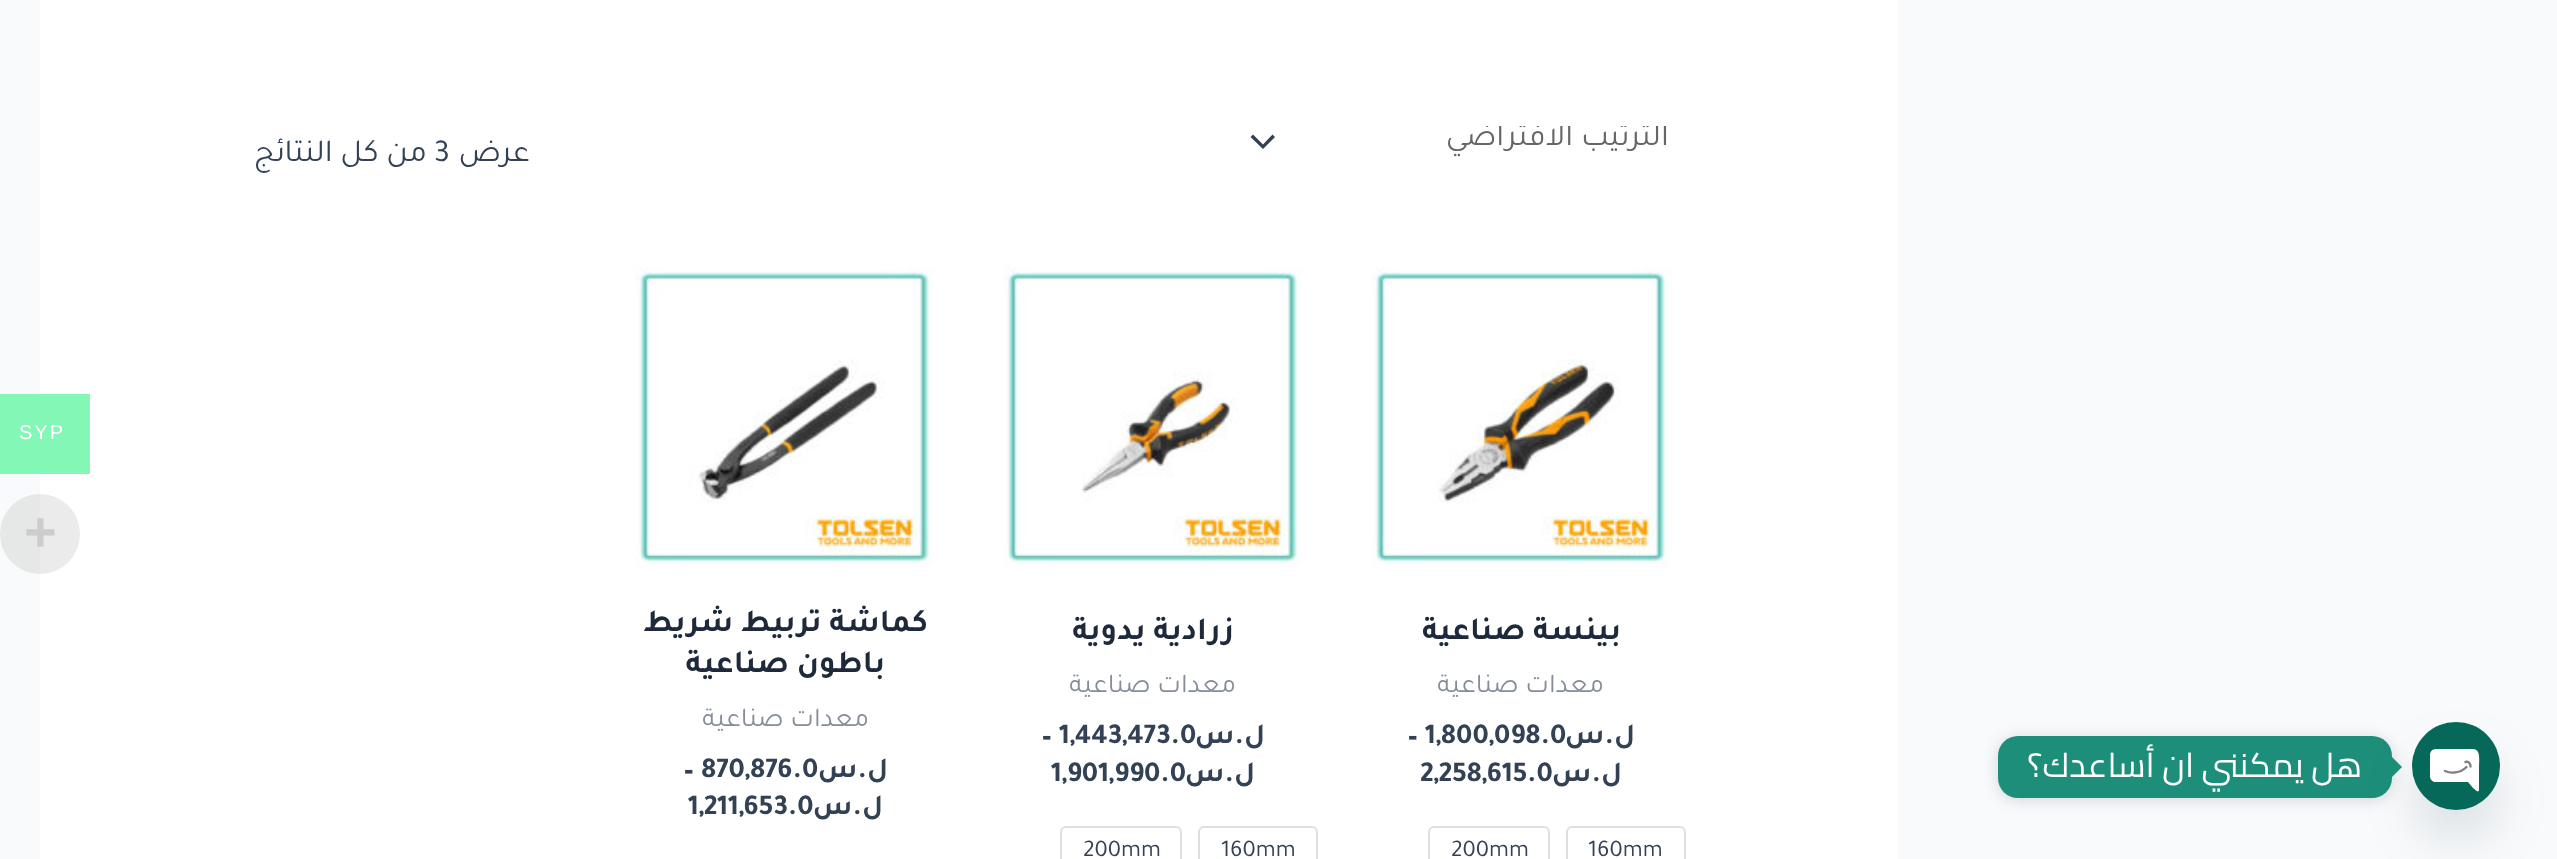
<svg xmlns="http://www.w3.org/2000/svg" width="2557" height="859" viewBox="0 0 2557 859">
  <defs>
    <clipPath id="clip1"><path d="M1258 126h412v32H1258z"/></clipPath>
  </defs>
  <rect width="100%" height="100%" fill="#f9fafb"/>
  <path d="M40 0h1858v859H40z" fill="#fff"/>
  <path d="M1250.5 137L1263 149L1275 137L1272.5 134.5L1263 144.5L1253 134.5Z" fill="#334155"/>
  <image x="1371" y="267" width="301" height="302" href="img/1.png"/>
  <rect x="1567" y="827" width="118" height="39" rx="5" fill="none" stroke="#dfdfdf" stroke-width="2"/>
  <rect x="1429" y="827" width="120" height="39" rx="5" fill="none" stroke="#dfdfdf" stroke-width="2"/>
  <image x="1003" y="267" width="299" height="300" href="img/2.png"/>
  <rect x="1199" y="827" width="118" height="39" rx="5" fill="none" stroke="#dfdfdf" stroke-width="2"/>
  <rect x="1061" y="827" width="120" height="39" rx="5" fill="none" stroke="#dfdfdf" stroke-width="2"/>
  <image x="635" y="267" width="299" height="300" href="img/3.png"/>
  <path d="M0 394h90v80H0z" fill="#82f7b6"/>
  <circle cx="40" cy="534" r="40" fill="#99999933"/>
  <rect x="1998" y="738" width="394" height="62" rx="20" fill="#00000026" filter="blur(7.5px)"/>
  <rect x="1998" y="736" width="394" height="62" rx="20" fill="#1c8e79"/>
  <path d="M2392 777V757L2402 767Z" fill="#1c8e79"/>
  <rect x="2412" y="754" width="88" height="88" rx="44" fill="#49687e29" filter="blur(24px)"/>
  <circle cx="2456" cy="766" r="44" fill="#066858"/>
  <path d="M2473 749H2436C2433 749 2430 751 2430 755V776C2430 780 2433 782 2436 782H2468L2473 788C2474 788 2478 794 2479 790V766C2479 761 2481 749 2473 749Z" fill="#fff"/>
  <path d="M2445 771C2449 773 2459 774.5 2466.5 767M2470.5 766.5C2470.5 764.5 2469.5 761 2465.5 762" fill="none" stroke="#808080" stroke-width="2.4" stroke-linecap="round" stroke-linejoin="round"/>
  <g clip-path="url(#clip1)">
    <text x="1669" y="145" font-family="Tajawal" font-size="32" direction="rtl" fill="#666">الترتيب الافتراضي</text>
  </g>
  <text x="530" y="161" font-family="Tajawal" font-size="32" direction="rtl" fill="#334155">عرض</text>
  <text x="434" y="161" font-family="Tajawal" font-size="32" fill="#334155">3</text>
  <text x="427" y="161" font-family="Tajawal" font-size="32" direction="rtl" fill="#334155">من كل النتائج</text>
  <text x="1621" y="639" font-family="Tajawal" font-size="32" font-weight="bold" direction="rtl" fill="#1e293b">بينسة صناعية</text>
  <text x="1604" y="692" font-family="Tajawal" font-size="27.25" direction="rtl" fill="#858d99">معدات صناعية</text>
  <text x="1635" y="743" font-family="Tajawal" font-size="29" font-weight="bold" direction="rtl" fill="#334155">ل.س</text>
  <g font-family="Tajawal" font-size="29" font-weight="bold" fill="#334155">
    <text x="1425" y="743">1,800,098.0</text>
    <text x="1407" y="743">–</text>
  </g>
  <text x="1622" y="781" font-family="Tajawal" font-size="29" font-weight="bold" direction="rtl" fill="#334155">ل.س</text>
  <text x="1420" y="781" font-family="Tajawal" font-size="29" font-weight="bold" fill="#334155">2,258,615.0</text>
  <g font-family="Tajawal" font-size="24" fill="#334155">
    <text x="1588" y="856">160mm</text>
    <text x="1451" y="856">200mm</text>
  </g>
  <text x="1234" y="639" font-family="Tajawal" font-size="32" font-weight="bold" direction="rtl" fill="#1e293b">زرادية يدوية</text>
  <text x="1236" y="692" font-family="Tajawal" font-size="27.25" direction="rtl" fill="#858d99">معدات صناعية</text>
  <text x="1265" y="743" font-family="Tajawal" font-size="29" font-weight="bold" direction="rtl" fill="#334155">ل.س</text>
  <g font-family="Tajawal" font-size="29" font-weight="bold" fill="#334155">
    <text x="1059" y="743">1,443,473.0</text>
    <text x="1041" y="743">–</text>
  </g>
  <text x="1255" y="781" font-family="Tajawal" font-size="29" font-weight="bold" direction="rtl" fill="#334155">ل.س</text>
  <text x="1051" y="781" font-family="Tajawal" font-size="29" font-weight="bold" fill="#334155">1,901,990.0</text>
  <g font-family="Tajawal" font-size="24" fill="#334155">
    <text x="1221" y="856">160mm</text>
    <text x="1083" y="856">200mm</text>
  </g>
  <g font-family="Tajawal" font-size="32" font-weight="bold" direction="rtl" fill="#1e293b">
    <text x="928" y="631">كماشة تربيط شريط</text>
    <text x="885" y="672">باطون صناعية</text>
  </g>
  <text x="869" y="726" font-family="Tajawal" font-size="27.25" direction="rtl" fill="#858d99">معدات صناعية</text>
  <text x="888" y="777" font-family="Tajawal" font-size="29" font-weight="bold" direction="rtl" fill="#334155">ل.س</text>
  <g font-family="Tajawal" font-size="29" font-weight="bold" fill="#334155">
    <text x="701" y="777">870,876.0</text>
    <text x="683" y="777">–</text>
  </g>
  <text x="883" y="814" font-family="Tajawal" font-size="29" font-weight="bold" direction="rtl" fill="#334155">ل.س</text>
  <text x="688" y="814" font-family="Tajawal" font-size="29" font-weight="bold" fill="#334155">1,211,653.0</text>
  <text x="19" y="439" font-family="Liberation Sans" font-size="20" letter-spacing="2" fill="#fff">SYP</text>
  <text x="24" y="551" font-family="Liberation Sans" font-size="56" font-weight="bold" fill="#ccc">+</text>
  <text x="2362" y="777" font-family="Cairo" font-size="34" direction="rtl" fill="#fff">هل يمكنني ان أساعدك؟</text>
</svg>
